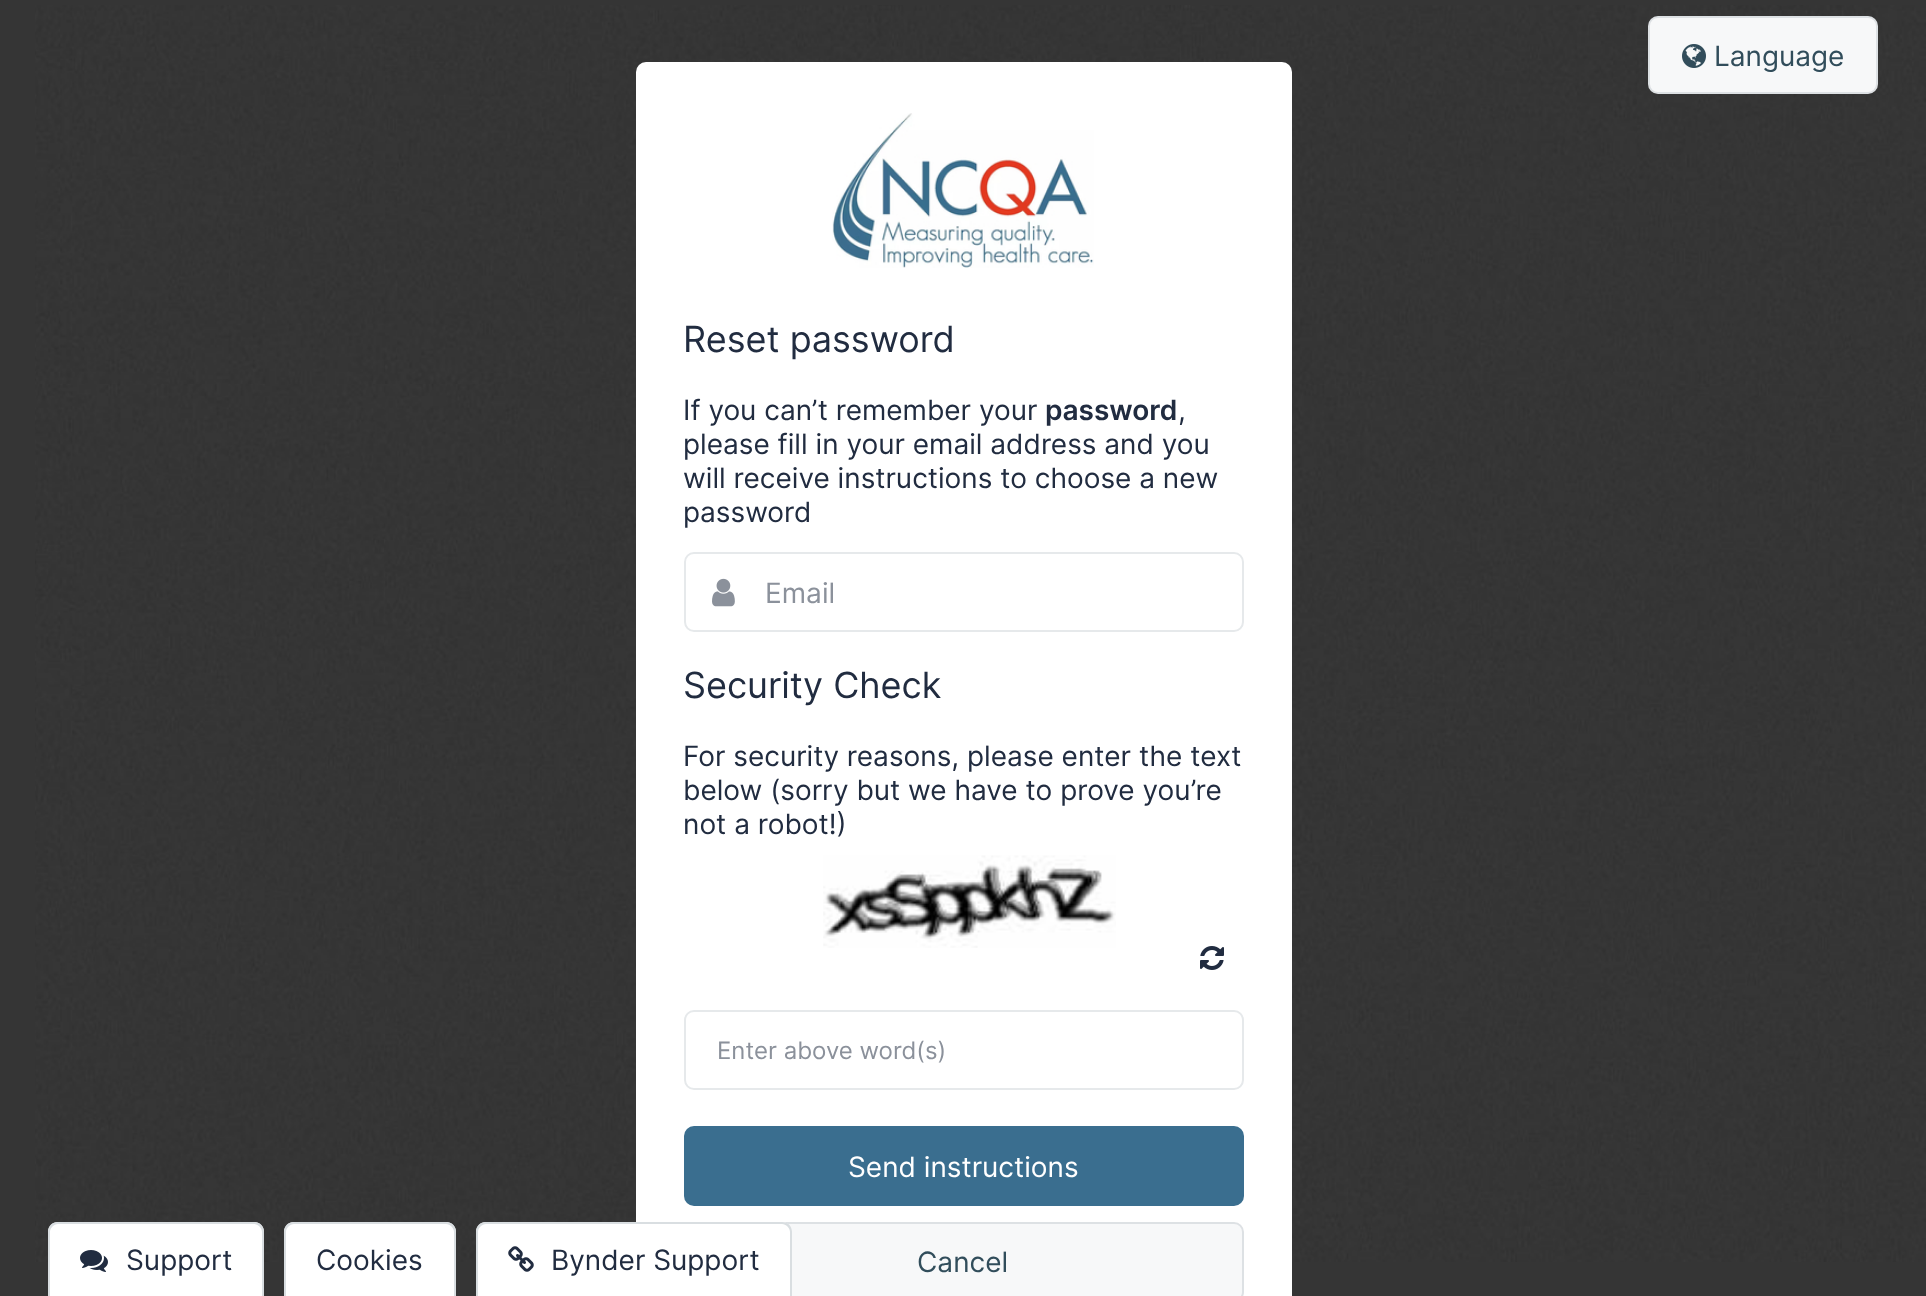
<svg xmlns="http://www.w3.org/2000/svg" width="1926" height="1296" viewBox="0 0 1926 1296">
  <rect width="100%" height="100%" fill="#353535"/>
  <image x="35" y="5" width="1891" height="1257" href="img/1.png"/>
  <rect x="1648" y="16" width="230" height="78" rx="10" fill="#f7f8f9"/>
  <rect x="1649" y="17" width="228" height="76" rx="9" fill="none" stroke="#0022331a" stroke-width="2"/>
  <image x="1682" y="44" width="24" height="24" href="img/2.png"/>
  <path d="M58 1222H254C259.5 1222 264 1226.5 264 1232V1296H48V1232C48 1226.5 52.5 1222 58 1222Z" fill="#fff"/>
  <path d="M58 1222H254C260 1222 264 1226 264 1232V1296H48V1232C48 1226 52 1222 58 1222ZM58 1224H254C258 1224 262 1228 262 1232V1296H50V1232C50 1228 54 1224 58 1224Z" fill="#d9dee1" fill-rule="evenodd"/>
  <image x="80" y="1250" width="28" height="22" href="img/3.png"/>
  <path d="M294 1222H446C451.5 1222 456 1226.5 456 1232V1296H284V1232C284 1226.5 288.5 1222 294 1222Z" fill="#fff"/>
  <path d="M294 1222H446C452 1222 456 1226 456 1232V1296H284V1232C284 1226 288 1222 294 1222ZM294 1224H446C450 1224 454 1228 454 1232V1296H286V1232C286 1228 290 1224 294 1224Z" fill="#d9dee1" fill-rule="evenodd"/>
  <rect x="636" y="62" width="656" height="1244" rx="10" fill="#fff"/>
  <rect x="684" y="1222" width="560" height="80" rx="10" fill="#f7f8f9"/>
  <rect x="685" y="1223" width="558" height="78" rx="9" fill="none" stroke="#0022331a" stroke-width="2"/>
  <path d="M486 1222H782C787.5 1222 792 1226.5 792 1232V1296H476V1232C476 1226.5 480.5 1222 486 1222Z" fill="#fff"/>
  <path d="M486 1222H782C788 1222 792 1226 792 1232V1296H476V1232C476 1226 480 1222 486 1222ZM486 1224H782C786 1224 790 1228 790 1232V1296H478V1232C478 1228 482 1224 486 1224Z" fill="#d9dee1" fill-rule="evenodd"/>
  <image x="508" y="1246" width="26" height="26" href="img/4.png"/>
  <image x="832" y="113" width="262" height="155" href="img/5.png"/>
  <rect x="685" y="553" width="558" height="78" rx="9" fill="none" stroke="#e6e9eb" stroke-width="2"/>
  <image x="712" y="578" width="23" height="29" href="img/6.png"/>
  <image x="823" y="855" width="293" height="93" href="img/7.png"/>
  <image x="1200" y="946" width="24" height="24" href="img/8.png"/>
  <rect x="685" y="1011" width="558" height="78" rx="9" fill="none" stroke="#e6e9eb" stroke-width="2"/>
  <rect x="684" y="1126" width="560" height="80" rx="10" fill="#3a6e8f"/>
  <text x="1714" y="66" font-family="Inter" font-size="28" fill="#314d5b">Language</text>
  <g font-family="Inter" font-size="28" fill="#212c40">
    <text x="126" y="1270">Support</text>
    <text x="316" y="1270">Cookies</text>
    <text x="551" y="1270">Bynder Support</text>
  </g>
  <text x="683" y="352" font-family="Inter" font-size="36" fill="#212c40">Reset password</text>
  <text x="683" y="420" font-family="Inter" font-size="28" fill="#212c40">If you can’t remember your</text>
  <text x="1045" y="420" font-family="Inter" font-size="28" font-weight="600" fill="#212c40">password</text>
  <g font-family="Inter" font-size="28" fill="#212c40">
    <text x="1178" y="420">,</text>
    <text x="683" y="454">please fill in your email address and you</text>
    <text x="683" y="488">will receive instructions to choose a new</text>
    <text x="683" y="522">password</text>
  </g>
  <text x="765" y="603" font-family="Inter" font-size="28" fill="#8b919b">Email</text>
  <text x="683" y="698" font-family="Inter" font-size="36" fill="#212c40">Security Check</text>
  <g font-family="Inter" font-size="28" fill="#212c40">
    <text x="683" y="766">For security reasons, please enter the text</text>
    <text x="683" y="800">below (sorry but we have to prove you’re</text>
    <text x="683" y="834">not a robot!)</text>
  </g>
  <text x="717" y="1059" font-family="Inter" font-size="24" fill="#8b919b">Enter above word(s)</text>
  <text x="848" y="1177" font-family="Inter" font-size="28" fill="#fff">Send instructions</text>
  <text x="917" y="1272" font-family="Inter" font-size="28" fill="#314d5b">Cancel</text>
</svg>
